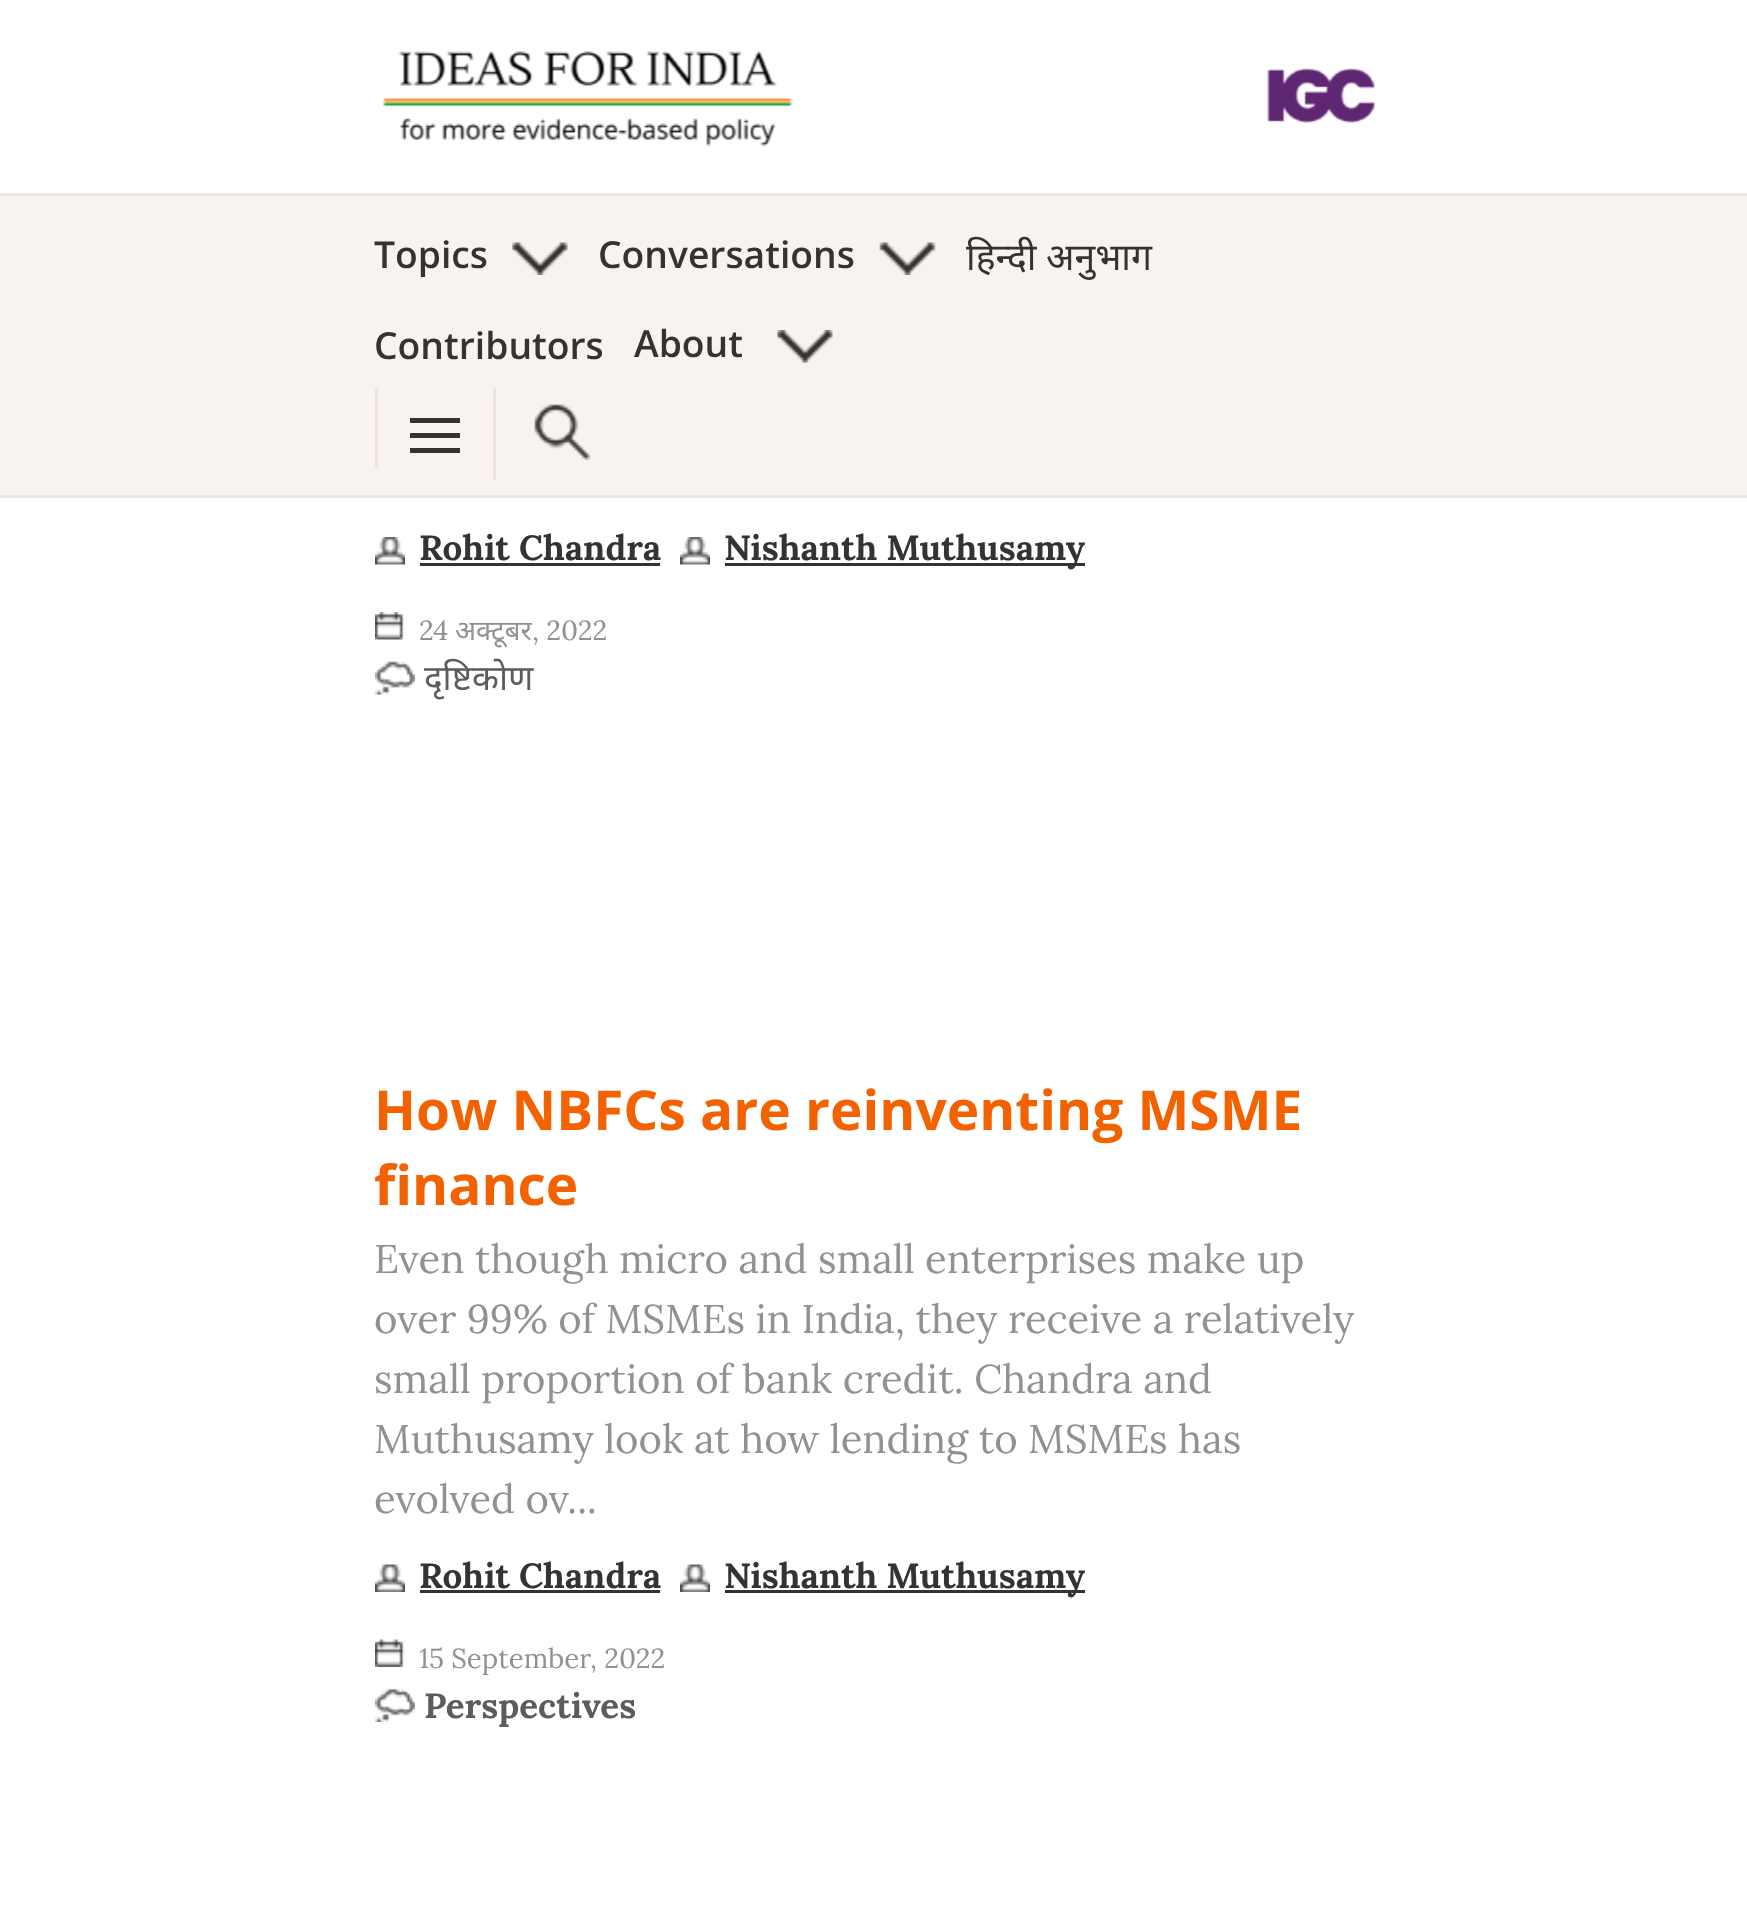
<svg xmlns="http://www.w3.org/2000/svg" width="1747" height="1920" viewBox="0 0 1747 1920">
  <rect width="100%" height="100%" fill="#fff"/>
  <image x="382" y="51" width="411" height="96" href="img/1.png"/>
  <image x="1267" y="68" width="108" height="55" href="img/2.png"/>
  <path d="M0 196h1747v299H0z" fill="#f9f3ef"/>
  <path d="M0 193h1747v3H0z" fill="#ede4dd"/>
  <path d="M0 495h1747v3H0z" fill="#ede4dd"/>
  <image x="512" y="242" width="56" height="33" href="img/3.png"/>
  <image x="879" y="242" width="57" height="33" href="img/4.png"/>
  <image x="777" y="330" width="56" height="33" href="img/5.png"/>
  <path d="M375 388h3v80H375z" fill="#ede4dd"/>
  <path d="M410 433h50v5H410z" fill="#333"/>
  <path d="M410 418h50v5H410z" fill="#333"/>
  <path d="M410 448h50v5H410z" fill="#333"/>
  <path d="M493 388h3v92H493z" fill="#ede4dd"/>
  <image x="534" y="404" width="57" height="56" href="img/6.png"/>
  <image x="375" y="537" width="30" height="28" href="img/7.png"/>
  <path d="M420 563h240v3H420z" fill="#333"/>
  <image x="680" y="537" width="30" height="28" href="img/8.png"/>
  <path d="M725 563h360v3H725z" fill="#333"/>
  <image x="375" y="612" width="29" height="28" href="img/9.png"/>
  <image x="375" y="661" width="40" height="34" href="img/10.png"/>
  <image x="375" y="1564" width="30" height="28" href="img/11.png"/>
  <path d="M420 1590h240v3H420z" fill="#333"/>
  <image x="680" y="1564" width="30" height="28" href="img/12.png"/>
  <path d="M725 1590h360v3H725z" fill="#333"/>
  <image x="375" y="1639" width="29" height="28" href="img/13.png"/>
  <image x="375" y="1688" width="40" height="34" href="img/14.png"/>
  <g font-family="Open Sans" font-size="37.25" font-weight="600" fill="#333">
    <text x="374" y="268">Topics</text>
    <text x="598" y="268">Conversations</text>
  </g>
  <text x="966" y="270" font-family="Noto Sans" font-size="37.25" fill="#333">हिन्दी अनुभाग</text>
  <g font-family="Open Sans" font-size="37.25" font-weight="600" fill="#333">
    <text x="374" y="359">Contributors</text>
    <text x="634" y="357">About</text>
  </g>
  <g font-family="Lora" font-size="35" font-weight="bold" fill="#333">
    <text x="419" y="560">Rohit Chandra</text>
    <text x="724" y="560">Nishanth Muthusamy</text>
  </g>
  <text x="419" y="640" font-family="Lora" font-size="27.5" fill="#919191">24</text>
  <text x="455" y="640" font-family="Noto Sans" font-size="27.5" fill="#919191">अक्टूबर</text>
  <text x="532" y="640" font-family="Lora" font-size="27.5" fill="#919191">, 2022</text>
  <text x="424" y="690" font-family="Noto Sans" font-size="35" fill="#5b5c5d">दृष्टिकोण</text>
  <g font-family="Open Sans" font-size="55" font-weight="bold" fill="#f26200">
    <text x="374" y="1130">How NBFCs are reinventing MSME</text>
    <text x="374" y="1205">finance</text>
  </g>
  <g font-family="Lora" font-size="40" fill="#919191">
    <text x="374" y="1273">Even though micro and small enterprises make up</text>
    <text x="374" y="1333">over 99% of MSMEs in India, they receive a relatively</text>
    <text x="374" y="1393">small proportion of bank credit. Chandra and</text>
    <text x="374" y="1453">Muthusamy look at how lending to MSMEs has</text>
    <text x="374" y="1513">evolved ov...</text>
  </g>
  <g font-family="Lora" font-size="35" font-weight="bold" fill="#333">
    <text x="419" y="1588">Rohit Chandra</text>
    <text x="724" y="1588">Nishanth Muthusamy</text>
  </g>
  <text x="419" y="1668" font-family="Lora" font-size="27.5" fill="#919191">15 September, 2022</text>
  <text x="424" y="1718" font-family="Lora" font-size="35" font-weight="bold" fill="#5b5c5d">Perspectives</text>
</svg>
